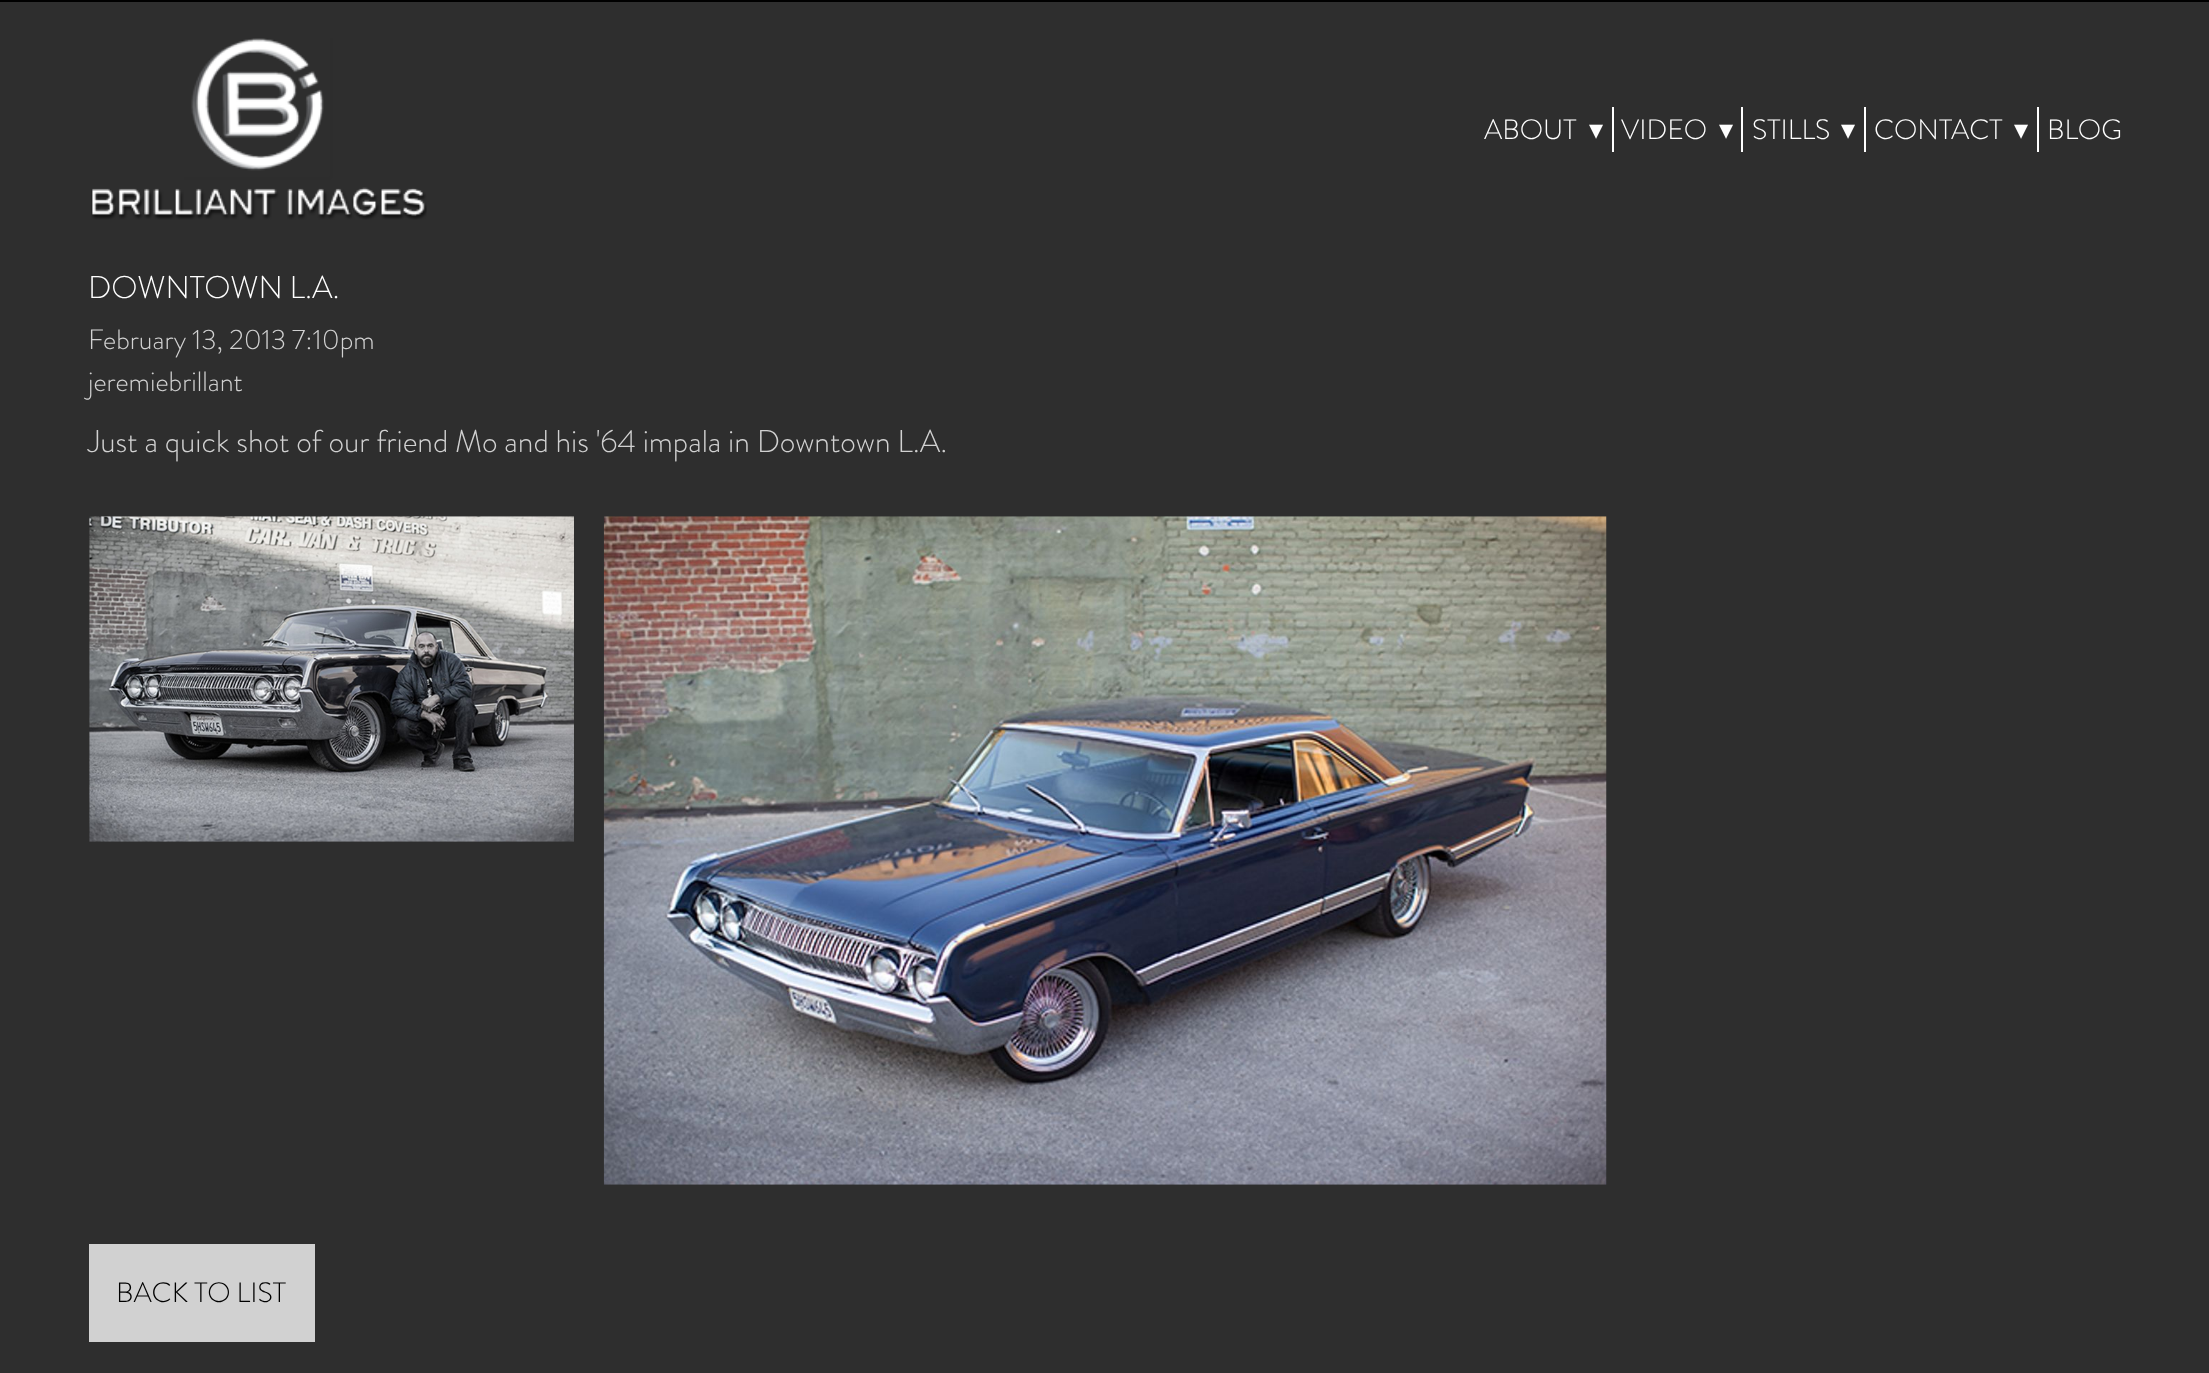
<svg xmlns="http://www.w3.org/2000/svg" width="2209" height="1373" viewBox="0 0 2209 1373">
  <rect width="100%" height="100%" fill="#2e2e2e"/>
  <path d="M0 0h2209v2H0z" fill="#000"/>
  <image x="91" y="38" width="336" height="182" href="img/1.png"/>
  <path d="M1612 107h2v45H1612z" fill="#fff"/>
  <path d="M1741 107h2v45H1741z" fill="#fff"/>
  <path d="M1864 107h2v45H1864z" fill="#fff"/>
  <path d="M2037 107h2v45H2037z" fill="#fff"/>
  <image x="89" y="516" width="485" height="326" href="img/2.png"/>
  <image x="603" y="516" width="1004" height="669" href="img/3.png"/>
  <path d="M89 1244h226v98H89z" fill="#d1d1d1"/>
  <text x="1484" y="139" font-family="Brandon Grotesque" font-size="28" font-weight="300" fill="#fff">ABOUT</text>
  <text x="1589" y="139" font-family="DejaVu Sans" font-size="28" fill="#fff">▾</text>
  <text x="1621" y="139" font-family="Brandon Grotesque" font-size="28" font-weight="300" fill="#fff">VIDEO</text>
  <text x="1719" y="139" font-family="DejaVu Sans" font-size="28" fill="#fff">▾</text>
  <text x="1752" y="139" font-family="Brandon Grotesque" font-size="28" font-weight="300" fill="#fff">STILLS</text>
  <text x="1841" y="139" font-family="DejaVu Sans" font-size="28" fill="#fff">▾</text>
  <text x="1874" y="139" font-family="Brandon Grotesque" font-size="28" font-weight="300" fill="#fff">CONTACT</text>
  <text x="2014" y="139" font-family="DejaVu Sans" font-size="28" fill="#fff">▾</text>
  <text x="2047" y="139" font-family="Brandon Grotesque" font-size="28" font-weight="300" fill="#fff">BLOG</text>
  <text x="88" y="298" font-family="Brandon Grotesque" font-size="31.5" font-weight="300" fill="#fff">DOWNTOWN L.A.</text>
  <g font-family="Brandon Grotesque" font-size="28" font-weight="300" fill="#d1d1d1">
    <text x="88" y="349">February 13, 2013 7:10pm</text>
    <text x="88" y="391">jeremiebrillant</text>
  </g>
  <text x="88" y="452" font-family="Brandon Grotesque" font-size="31.5" font-weight="300" fill="#d1d1d1">Just a quick shot of our friend Mo and his '64 impala in Downtown L.A.</text>
  <text x="116" y="1302" font-family="Brandon Grotesque" font-size="28" font-weight="300" fill="#000">BACK TO LIST</text>
</svg>
